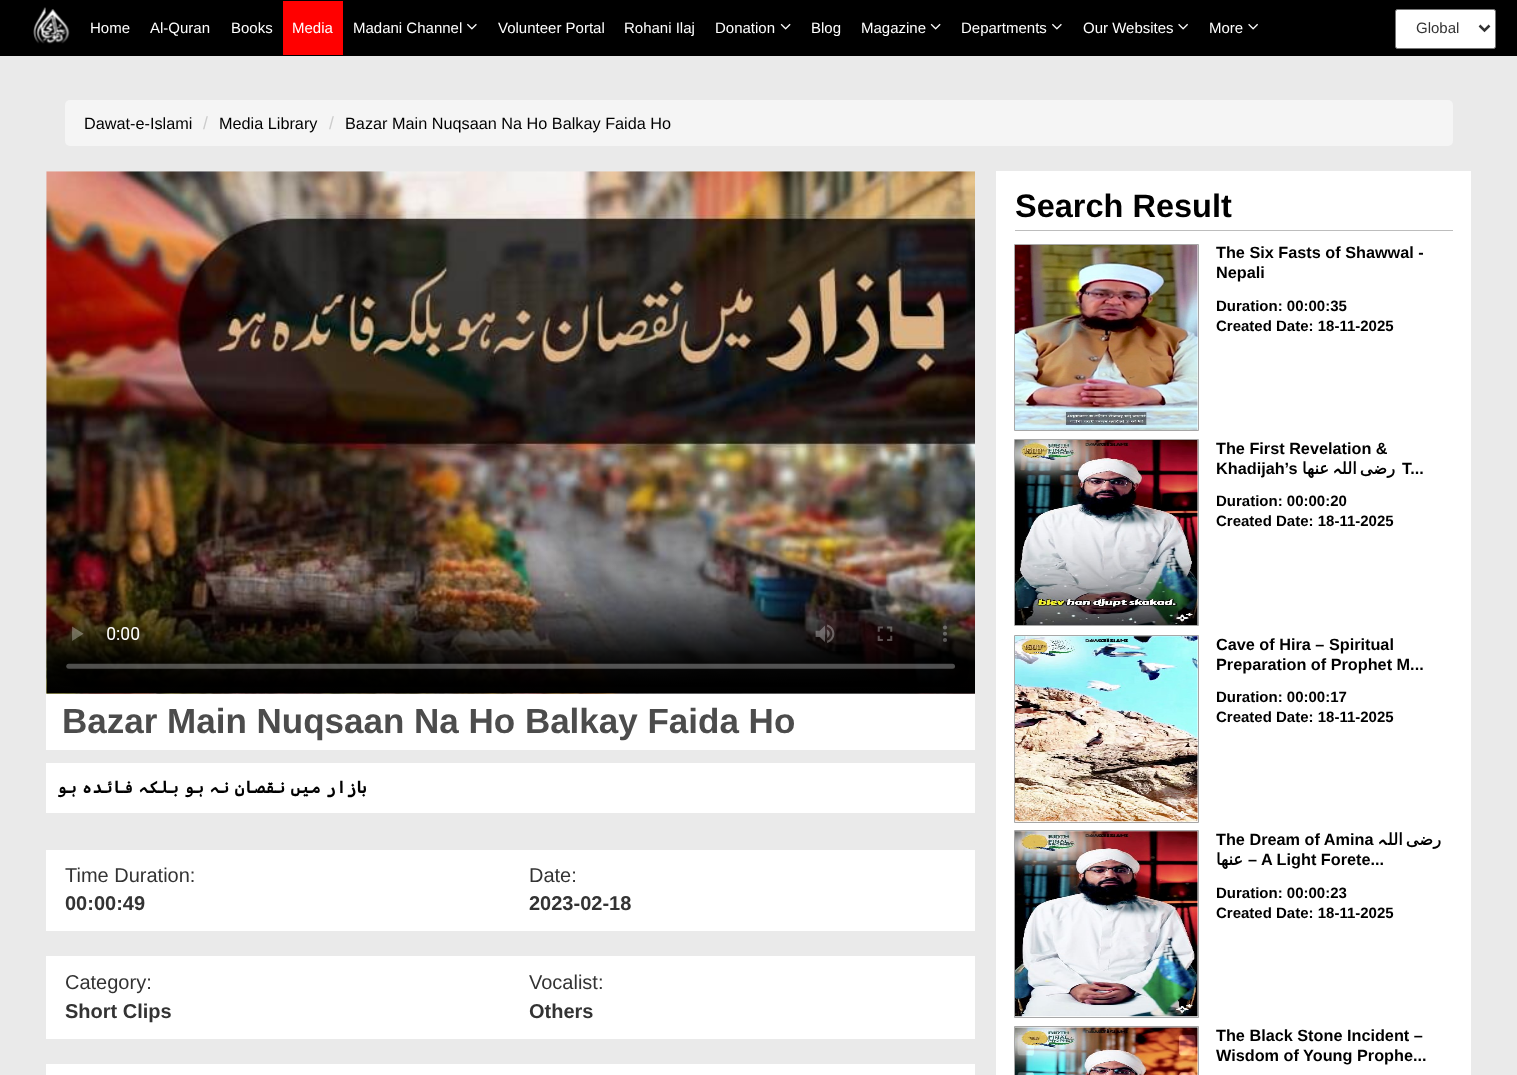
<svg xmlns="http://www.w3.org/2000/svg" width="1517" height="1075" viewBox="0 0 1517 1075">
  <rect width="100%" height="100%" fill="#eaeaea"/>
  <path d="M0 0h1517v56H0z" fill="#000"/>
  <image x="33" y="7" width="37" height="37" href="img/1.png"/>
  <path d="M283 1h60v54H283z" fill="#f00"/>
  <image x="467" y="23" width="10" height="7" href="img/2.png"/>
  <image x="780" y="23" width="11" height="7" href="img/3.png"/>
  <image x="930" y="23" width="11" height="7" href="img/3.png"/>
  <image x="1052" y="23" width="10" height="7" href="img/2.png"/>
  <image x="1178" y="23" width="10" height="7" href="img/4.png"/>
  <image x="1248" y="23" width="10" height="7" href="img/4.png"/>
  <rect x="1395.5" y="9.5" width="100" height="39" rx="2" fill="#fff" stroke="#767676"/>
  <path d="M1479.5 25.5L1484.5 30.5L1489.5 25.5" fill="none" stroke="#333" stroke-width="2.5"/>
  <rect x="65" y="100" width="1388" height="46" rx="5" fill="#f5f5f5"/>
  <image x="46" y="171" width="929" height="523" href="img/5.png"/>
  <path d="M46 694h929v56H46z" fill="#fff"/>
  <path d="M46 763h929v50H46z" fill="#fff"/>
  <path d="M46 850h929v81H46z" fill="#fff"/>
  <path d="M46 956h929v83H46z" fill="#fff"/>
  <path d="M46 1064h929v11H46z" fill="#fff"/>
  <path d="M996 171h475v904H996z" fill="#fff"/>
  <path d="M1015 230h438v1H1015z" fill="#bdbdbd"/>
  <path d="M1014.5 244.5h184v186H1014.5z" fill="none" stroke="#a7a7a7"/>
  <image x="1015" y="245" width="183" height="185" href="img/6.png"/>
  <path d="M1014.5 439.5h184v186H1014.5z" fill="none" stroke="#a7a7a7"/>
  <image x="1015" y="440" width="183" height="185" href="img/7.png"/>
  <path d="M1014.5 635.5h184v187H1014.5z" fill="none" stroke="#a7a7a7"/>
  <image x="1015" y="636" width="183" height="186" href="img/8.png"/>
  <path d="M1014.5 830.5h184v187H1014.5z" fill="none" stroke="#a7a7a7"/>
  <image x="1015" y="831" width="183" height="186" href="img/9.png"/>
  <path d="M1014.5 1026.5h184v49H1014.5z" fill="none" stroke="#a7a7a7"/>
  <image x="1015" y="1027" width="183" height="48" href="img/10.png"/>
  <g font-family="Liberation Sans" font-size="15" fill="#fff">
    <text x="90" y="33">Home</text>
    <text x="150" y="33">Al-Quran</text>
    <text x="231" y="33">Books</text>
    <text x="292" y="33">Media</text>
    <text x="353" y="33">Madani Channel</text>
    <text x="498" y="33">Volunteer Portal</text>
    <text x="624" y="33">Rohani Ilaj</text>
    <text x="715" y="33">Donation</text>
    <text x="811" y="33">Blog</text>
    <text x="861" y="33">Magazine</text>
    <text x="961" y="33">Departments</text>
    <text x="1083" y="33">Our Websites</text>
    <text x="1209" y="33">More</text>
  </g>
  <text x="1416" y="33" font-family="Liberation Sans" font-size="15" fill="#333">Global</text>
  <text x="84" y="129" font-family="Liberation Sans" font-size="16.25" fill="#000">Dawat-e-Islami</text>
  <text x="203" y="129" font-family="Liberation Sans" font-size="17.5" fill="#ccc">/</text>
  <text x="219" y="129" font-family="Liberation Sans" font-size="16.25" fill="#000">Media Library</text>
  <text x="329" y="129" font-family="Liberation Sans" font-size="17.5" fill="#ccc">/</text>
  <text x="345" y="129" font-family="Liberation Sans" font-size="16.25" fill="#000">Bazar Main Nuqsaan Na Ho Balkay Faida Ho</text>
  <text x="62" y="733" font-family="Liberation Sans" font-size="35" font-weight="bold" fill="#4c4c4c">Bazar Main Nuqsaan Na Ho Balkay Faida Ho</text>
  <text x="367" y="793" word-spacing="-5.5" font-family="Cascadia Code" font-size="17.5" font-weight="bold" direction="rtl" fill="#000">بازار میں نقصان نہ ہو بلکہ فائدہ ہو</text>
  <text x="65" y="882" font-family="Liberation Sans" font-size="20" fill="#333">Time Duration:</text>
  <text x="65" y="910" font-family="Liberation Sans" font-size="20" font-weight="bold" fill="#333">00:00:49</text>
  <text x="529" y="882" font-family="Liberation Sans" font-size="20" fill="#333">Date:</text>
  <text x="529" y="910" font-family="Liberation Sans" font-size="20" font-weight="bold" fill="#333">2023-02-18</text>
  <text x="65" y="989" font-family="Liberation Sans" font-size="20" fill="#333">Category:</text>
  <text x="65" y="1018" font-family="Liberation Sans" font-size="20" font-weight="bold" fill="#333">Short Clips</text>
  <text x="529" y="989" font-family="Liberation Sans" font-size="20" fill="#333">Vocalist:</text>
  <text x="529" y="1018" font-family="Liberation Sans" font-size="20" font-weight="bold" fill="#333">Others</text>
  <text x="1015" y="217" font-family="Liberation Sans" font-size="32.5" font-weight="bold" fill="#000">Search Result</text>
  <g font-family="Liberation Sans" font-size="16.25" font-weight="bold" fill="#000">
    <text x="1216" y="258">The Six Fasts of Shawwal -</text>
    <text x="1216" y="278">Nepali</text>
  </g>
  <g font-family="Liberation Sans" font-size="15" font-weight="bold" fill="#000">
    <text x="1216" y="311">Duration: 00:00:35</text>
    <text x="1216" y="331">Created Date: 18-11-2025</text>
  </g>
  <g font-family="Liberation Sans" font-size="16.25" font-weight="bold" fill="#000">
    <text x="1216" y="454">The First Revelation &amp;</text>
    <text x="1216" y="474">Khadijah’s</text>
  </g>
  <text x="1329" y="474" font-family="DejaVu Sans" font-size="16.25" font-weight="bold" direction="rtl" fill="#000">عنھا</text>
  <text x="1342" y="474" font-family="Cascadia Code" font-size="16.25" font-weight="bold" direction="rtl" fill="#000">‍ہ</text>
  <text x="1395" y="474" word-spacing="-2" font-family="DejaVu Sans" font-size="16.25" font-weight="bold" direction="rtl" fill="#000">رضی الل‍</text>
  <text x="1402" y="474" font-family="Liberation Sans" font-size="16.25" font-weight="bold" fill="#000">T...</text>
  <g font-family="Liberation Sans" font-size="15" font-weight="bold" fill="#000">
    <text x="1216" y="506">Duration: 00:00:20</text>
    <text x="1216" y="526">Created Date: 18-11-2025</text>
  </g>
  <g font-family="Liberation Sans" font-size="16.25" font-weight="bold" fill="#000">
    <text x="1216" y="650">Cave of Hira – Spiritual</text>
    <text x="1216" y="670">Preparation of Prophet M...</text>
  </g>
  <g font-family="Liberation Sans" font-size="15" font-weight="bold" fill="#000">
    <text x="1216" y="702">Duration: 00:00:17</text>
    <text x="1216" y="722">Created Date: 18-11-2025</text>
  </g>
  <text x="1216" y="845" font-family="Liberation Sans" font-size="16.25" font-weight="bold" fill="#000">The Dream of Amina</text>
  <text x="1387" y="845" font-family="Cascadia Code" font-size="16.25" font-weight="bold" direction="rtl" fill="#000">‍ہ</text>
  <g font-family="DejaVu Sans" font-size="16.25" font-weight="bold" direction="rtl" fill="#000">
    <text x="1441" y="845" word-spacing="-2">رضی الل‍</text>
    <text x="1243" y="865">عنھا</text>
  </g>
  <text x="1248" y="865" font-family="Liberation Sans" font-size="16.25" font-weight="bold" fill="#000">– A Light Forete...</text>
  <g font-family="Liberation Sans" font-size="15" font-weight="bold" fill="#000">
    <text x="1216" y="898">Duration: 00:00:23</text>
    <text x="1216" y="918">Created Date: 18-11-2025</text>
  </g>
  <g font-family="Liberation Sans" font-size="16.25" font-weight="bold" fill="#000">
    <text x="1216" y="1041">The Black Stone Incident –</text>
    <text x="1216" y="1061">Wisdom of Young Prophe...</text>
  </g>
</svg>
